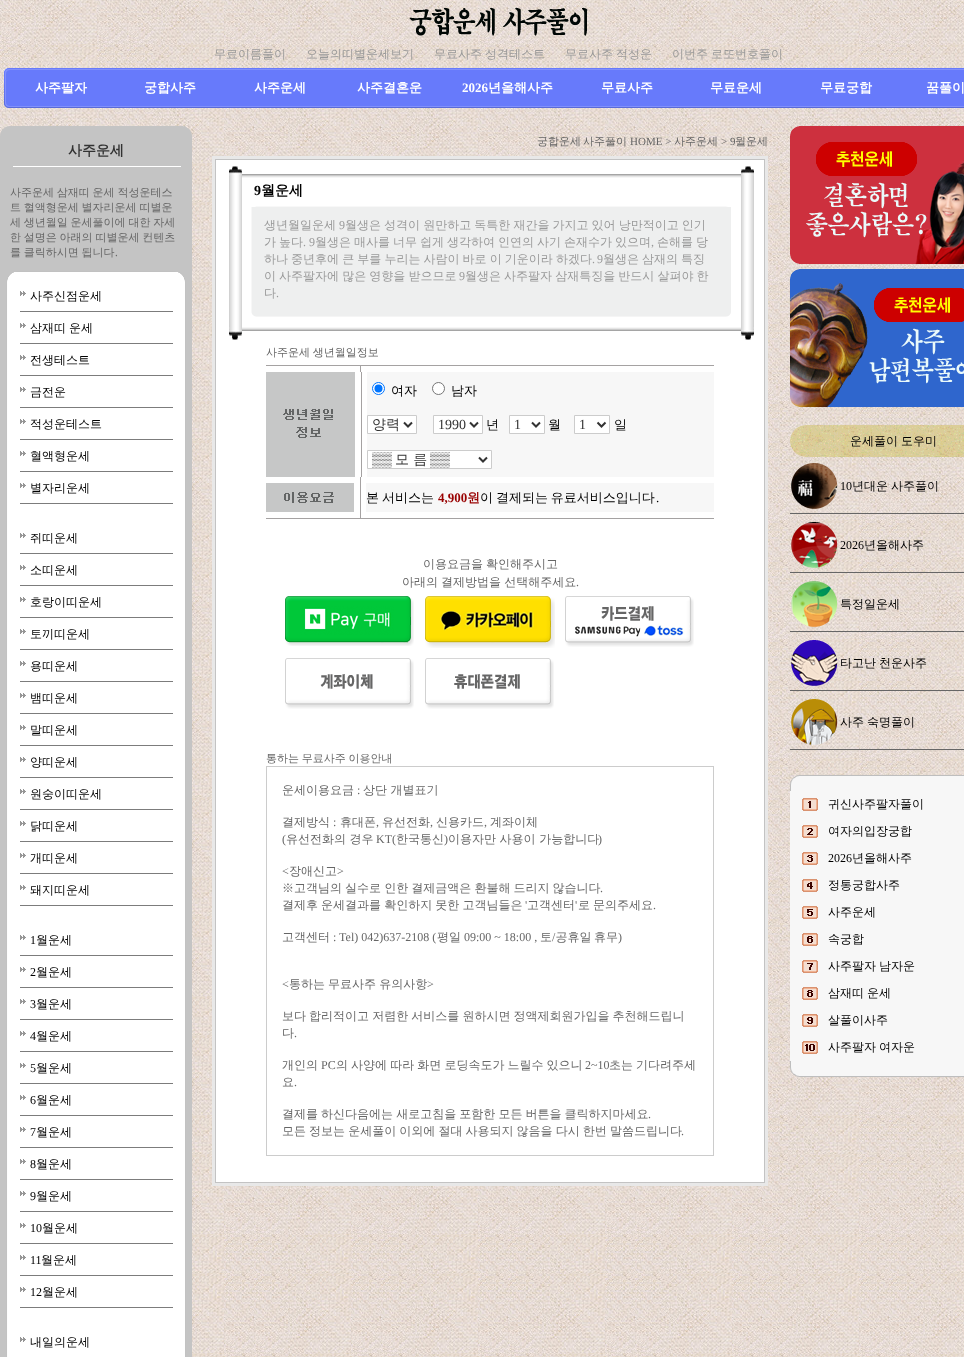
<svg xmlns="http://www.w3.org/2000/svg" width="964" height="1357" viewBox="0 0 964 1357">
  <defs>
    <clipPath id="clip1"><path d="M372 451h103v17H372z"/></clipPath>
  </defs>
  <rect width="100%" height="100%" fill="#fff"/>
  <image x="0" y="0" width="964" height="1357" href="img/1.png"/>
  <image x="409" y="7" width="179" height="29" href="img/2.png"/>
  <image x="4" y="68" width="960" height="40" href="img/3.png"/>
  <image x="0" y="126" width="192" height="49" href="img/4.png"/>
  <path d="M0 175h192v95H0z" fill="#c4c4c4"/>
  <image x="0" y="270" width="192" height="14" href="img/5.png"/>
  <image x="0" y="284" width="192" height="1073" href="img/6.png"/>
  <image x="20" y="291" width="6" height="5" href="img/7.png"/>
  <path d="M20 311h153v1H20z" fill="#7c7c7c"/>
  <image x="20" y="323" width="6" height="5" href="img/7.png"/>
  <path d="M20 343h153v1H20z" fill="#7c7c7c"/>
  <image x="20" y="355" width="6" height="5" href="img/7.png"/>
  <path d="M20 375h153v1H20z" fill="#7c7c7c"/>
  <image x="20" y="387" width="6" height="5" href="img/7.png"/>
  <path d="M20 407h153v1H20z" fill="#7c7c7c"/>
  <image x="20" y="419" width="6" height="5" href="img/7.png"/>
  <path d="M20 439h153v1H20z" fill="#7c7c7c"/>
  <image x="20" y="451" width="6" height="5" href="img/7.png"/>
  <path d="M20 471h153v1H20z" fill="#7c7c7c"/>
  <image x="20" y="483" width="6" height="5" href="img/7.png"/>
  <path d="M20 503h153v1H20z" fill="#7c7c7c"/>
  <image x="20" y="533" width="6" height="5" href="img/7.png"/>
  <path d="M20 553h153v1H20z" fill="#7c7c7c"/>
  <image x="20" y="565" width="6" height="5" href="img/7.png"/>
  <path d="M20 585h153v1H20z" fill="#7c7c7c"/>
  <image x="20" y="597" width="6" height="5" href="img/7.png"/>
  <path d="M20 617h153v1H20z" fill="#7c7c7c"/>
  <image x="20" y="629" width="6" height="5" href="img/7.png"/>
  <path d="M20 649h153v1H20z" fill="#7c7c7c"/>
  <image x="20" y="661" width="6" height="5" href="img/7.png"/>
  <path d="M20 681h153v1H20z" fill="#7c7c7c"/>
  <image x="20" y="693" width="6" height="5" href="img/7.png"/>
  <path d="M20 713h153v1H20z" fill="#7c7c7c"/>
  <image x="20" y="725" width="6" height="5" href="img/7.png"/>
  <path d="M20 745h153v1H20z" fill="#7c7c7c"/>
  <image x="20" y="757" width="6" height="5" href="img/7.png"/>
  <path d="M20 777h153v1H20z" fill="#7c7c7c"/>
  <image x="20" y="789" width="6" height="5" href="img/7.png"/>
  <path d="M20 809h153v1H20z" fill="#7c7c7c"/>
  <image x="20" y="821" width="6" height="5" href="img/7.png"/>
  <path d="M20 841h153v1H20z" fill="#7c7c7c"/>
  <image x="20" y="853" width="6" height="5" href="img/7.png"/>
  <path d="M20 873h153v1H20z" fill="#7c7c7c"/>
  <image x="20" y="885" width="6" height="5" href="img/7.png"/>
  <path d="M20 905h153v1H20z" fill="#7c7c7c"/>
  <image x="20" y="935" width="6" height="5" href="img/7.png"/>
  <path d="M20 955h153v1H20z" fill="#7c7c7c"/>
  <image x="20" y="967" width="6" height="5" href="img/7.png"/>
  <path d="M20 987h153v1H20z" fill="#7c7c7c"/>
  <image x="20" y="999" width="6" height="5" href="img/7.png"/>
  <path d="M20 1019h153v1H20z" fill="#7c7c7c"/>
  <image x="20" y="1031" width="6" height="5" href="img/7.png"/>
  <path d="M20 1051h153v1H20z" fill="#7c7c7c"/>
  <image x="20" y="1063" width="6" height="5" href="img/7.png"/>
  <path d="M20 1083h153v1H20z" fill="#7c7c7c"/>
  <image x="20" y="1095" width="6" height="5" href="img/7.png"/>
  <path d="M20 1115h153v1H20z" fill="#7c7c7c"/>
  <image x="20" y="1127" width="6" height="5" href="img/7.png"/>
  <path d="M20 1147h153v1H20z" fill="#7c7c7c"/>
  <image x="20" y="1159" width="6" height="5" href="img/7.png"/>
  <path d="M20 1179h153v1H20z" fill="#7c7c7c"/>
  <image x="20" y="1191" width="6" height="5" href="img/7.png"/>
  <path d="M20 1211h153v1H20z" fill="#7c7c7c"/>
  <image x="20" y="1223" width="6" height="5" href="img/7.png"/>
  <path d="M20 1243h153v1H20z" fill="#7c7c7c"/>
  <image x="20" y="1255" width="6" height="5" href="img/7.png"/>
  <path d="M20 1275h153v1H20z" fill="#7c7c7c"/>
  <image x="20" y="1287" width="6" height="5" href="img/7.png"/>
  <path d="M20 1307h153v1H20z" fill="#7c7c7c"/>
  <image x="20" y="1337" width="6" height="5" href="img/7.png"/>
  <image x="212" y="156" width="556" height="19" href="img/8.png"/>
  <image x="212" y="175" width="556" height="32" href="img/9.png"/>
  <image x="212" y="207" width="556" height="105" href="img/10.png"/>
  <image x="212" y="312" width="556" height="28" href="img/11.png"/>
  <image x="212" y="340" width="556" height="816" href="img/12.png"/>
  <image x="266" y="365" width="448" height="7" href="img/13.png"/>
  <path d="M266 372h89v105H266z" fill="#c6c7c7"/>
  <image x="283" y="409" width="50" height="29" href="img/14.png"/>
  <path d="M361 372h1v105H361z" fill="#a5a2a2"/>
  <path d="M367 372h347v105H367z" fill="#f7f7f7"/>
  <circle cx="378.5" cy="388.5" r="6" fill="#fff" stroke="#0075ff"/>
  <circle cx="378.5" cy="388.5" r="4" fill="#0075ff"/>
  <circle cx="438.5" cy="388.5" r="6" fill="#fff" stroke="#767676"/>
  <path d="M367.5 415.5h49v18H367.5z" fill="#fff" stroke="#ccc"/>
  <path d="M404 422.5L408 426.5L412 422.5" fill="none" stroke="#333" stroke-width="2"/>
  <path d="M433.5 415.5h49v18H433.5z" fill="#fff" stroke="#ccc"/>
  <path d="M470 422.5L474 426.5L478 422.5" fill="none" stroke="#333" stroke-width="2"/>
  <path d="M509.5 415.5h35v18H509.5z" fill="#fff" stroke="#ccc"/>
  <path d="M532 422.5L536 426.5L540 422.5" fill="none" stroke="#333" stroke-width="2"/>
  <path d="M574.5 415.5h35v18H574.5z" fill="#fff" stroke="#ccc"/>
  <path d="M597.5 422.5L601.5 426.5L605.5 422.5" fill="none" stroke="#333" stroke-width="2"/>
  <path d="M367.5 450.5h124v18H367.5z" fill="#fff" stroke="#ccc"/>
  <path d="M479 457.5L483 461.5L487 457.5" fill="none" stroke="#333" stroke-width="2"/>
  <path d="M360 477h1v35H360z" fill="#a5a2a2"/>
  <image x="266" y="483" width="88" height="29" href="img/15.png"/>
  <path d="M366 483h348v29H366z" fill="#f7f7f7"/>
  <image x="266" y="512" width="448" height="7" href="img/16.png"/>
  <image x="285" y="596" width="129" height="50" href="img/17.png"/>
  <image x="425" y="596" width="130" height="52" href="img/18.png"/>
  <image x="565" y="596" width="129" height="51" href="img/19.png"/>
  <image x="285" y="658" width="129" height="51" href="img/20.png"/>
  <image x="425" y="658" width="129" height="51" href="img/21.png"/>
  <path d="M266 766h448v390H266z" fill="#ccc"/>
  <path d="M267 767h446v388H267z" fill="#fff"/>
  <image x="212" y="1156" width="556" height="30" href="img/22.png"/>
  <image x="790" y="126" width="174" height="138" href="img/23.png"/>
  <image x="790" y="269" width="174" height="138" href="img/24.png"/>
  <image x="790" y="425" width="174" height="32" href="img/25.png"/>
  <image x="791" y="463" width="47" height="46" href="img/26.png"/>
  <path d="M790 513h174v1H790z" fill="#666"/>
  <image x="791" y="522" width="47" height="46" href="img/27.png"/>
  <path d="M790 572h174v1H790z" fill="#666"/>
  <image x="791" y="581" width="47" height="46" href="img/28.png"/>
  <path d="M790 631h174v1H790z" fill="#666"/>
  <image x="791" y="640" width="47" height="46" href="img/29.png"/>
  <path d="M790 690h174v1H790z" fill="#666"/>
  <image x="791" y="699" width="47" height="46" href="img/30.png"/>
  <path d="M790 749h174v1H790z" fill="#666"/>
  <image x="790" y="775" width="174" height="16" href="img/31.png"/>
  <path d="M790 791h174v270H790z" fill="#f7f7f7"/>
  <image x="802" y="798" width="16" height="13" href="img/32.png"/>
  <image x="802" y="825" width="16" height="13" href="img/33.png"/>
  <image x="802" y="852" width="16" height="13" href="img/34.png"/>
  <image x="802" y="879" width="16" height="13" href="img/35.png"/>
  <image x="802" y="906" width="16" height="13" href="img/36.png"/>
  <image x="802" y="933" width="16" height="13" href="img/37.png"/>
  <image x="802" y="960" width="16" height="13" href="img/38.png"/>
  <image x="802" y="987" width="16" height="13" href="img/39.png"/>
  <image x="802" y="1014" width="16" height="13" href="img/40.png"/>
  <image x="802" y="1041" width="16" height="13" href="img/41.png"/>
  <image x="790" y="1061" width="174" height="16" href="img/42.png"/>
  <g font-family="WenQuanYi Zen Hei" font-size="12" font-weight="500" fill="#999">
    <text x="214" y="58">무료이름풀이</text>
    <text x="306" y="58">오늘의띠별운세보기</text>
    <text x="434" y="58" word-spacing="-0.5">무료사주 성격테스트</text>
    <text x="565" y="58" word-spacing="-0.5">무료사주 적성운</text>
    <text x="672" y="58" word-spacing="-0.5">이번주 로또번호풀이</text>
  </g>
  <g font-family="WenQuanYi Zen Hei" font-size="13" font-weight="bold" fill="#fff">
    <text x="35" y="92">사주팔자</text>
    <text x="144" y="92">궁합사주</text>
    <text x="254" y="92">사주운세</text>
    <text x="357" y="92">사주결혼운</text>
  </g>
  <text x="462" y="92" font-family="Liberation Serif" font-size="13" font-weight="bold" fill="#fff">2026</text>
  <g font-family="WenQuanYi Zen Hei" font-size="13" font-weight="bold" fill="#fff">
    <text x="488" y="92">년올해사주</text>
    <text x="601" y="92">무료사주</text>
    <text x="710" y="92">무료운세</text>
    <text x="820" y="92">무료궁합</text>
    <text x="926" y="92">꿈풀이</text>
  </g>
  <text x="68" y="155" font-family="WenQuanYi Zen Hei" font-size="14" font-weight="bold" fill="#333">사주운세</text>
  <g font-family="WenQuanYi Zen Hei" font-size="11" font-weight="500" fill="#666">
    <text x="10" y="196" word-spacing="-0.5">사주운세 삼재띠 운세 적성운테스</text>
    <text x="10" y="211" word-spacing="-0.5">트 혈액형운세 별자리운세 띠별운</text>
    <text x="10" y="226" word-spacing="-0.5">세 생년월일 운세풀이에 대한 자세</text>
    <text x="10" y="241" word-spacing="-0.5">한 설명은 아래의 띠별운세 컨텐츠</text>
    <text x="10" y="256" word-spacing="-0.5">를 클릭하시면 됩니다</text>
  </g>
  <text x="115" y="256" font-family="Liberation Serif" font-size="11" fill="#666">.</text>
  <g font-family="WenQuanYi Zen Hei" font-size="12" font-weight="500" fill="#000">
    <text x="30" y="300">사주신점운세</text>
    <text x="30" y="332" word-spacing="-0.5">삼재띠 운세</text>
    <text x="30" y="364">전생테스트</text>
    <text x="30" y="396">금전운</text>
    <text x="30" y="428">적성운테스트</text>
    <text x="30" y="460">혈액형운세</text>
    <text x="30" y="492">별자리운세</text>
    <text x="30" y="542">쥐띠운세</text>
    <text x="30" y="574">소띠운세</text>
    <text x="30" y="606">호랑이띠운세</text>
    <text x="30" y="638">토끼띠운세</text>
    <text x="30" y="670">용띠운세</text>
    <text x="30" y="702">뱀띠운세</text>
    <text x="30" y="734">말띠운세</text>
    <text x="30" y="766">양띠운세</text>
    <text x="30" y="798">원숭이띠운세</text>
    <text x="30" y="830">닭띠운세</text>
    <text x="30" y="862">개띠운세</text>
    <text x="30" y="894">돼지띠운세</text>
  </g>
  <text x="30" y="944" font-family="Liberation Serif" font-size="12" fill="#000">1</text>
  <text x="36" y="944" font-family="WenQuanYi Zen Hei" font-size="12" font-weight="500" fill="#000">월운세</text>
  <text x="30" y="976" font-family="Liberation Serif" font-size="12" fill="#000">2</text>
  <text x="36" y="976" font-family="WenQuanYi Zen Hei" font-size="12" font-weight="500" fill="#000">월운세</text>
  <text x="30" y="1008" font-family="Liberation Serif" font-size="12" fill="#000">3</text>
  <text x="36" y="1008" font-family="WenQuanYi Zen Hei" font-size="12" font-weight="500" fill="#000">월운세</text>
  <text x="30" y="1040" font-family="Liberation Serif" font-size="12" fill="#000">4</text>
  <text x="36" y="1040" font-family="WenQuanYi Zen Hei" font-size="12" font-weight="500" fill="#000">월운세</text>
  <text x="30" y="1072" font-family="Liberation Serif" font-size="12" fill="#000">5</text>
  <text x="36" y="1072" font-family="WenQuanYi Zen Hei" font-size="12" font-weight="500" fill="#000">월운세</text>
  <text x="30" y="1104" font-family="Liberation Serif" font-size="12" fill="#000">6</text>
  <text x="36" y="1104" font-family="WenQuanYi Zen Hei" font-size="12" font-weight="500" fill="#000">월운세</text>
  <text x="30" y="1136" font-family="Liberation Serif" font-size="12" fill="#000">7</text>
  <text x="36" y="1136" font-family="WenQuanYi Zen Hei" font-size="12" font-weight="500" fill="#000">월운세</text>
  <text x="30" y="1168" font-family="Liberation Serif" font-size="12" fill="#000">8</text>
  <text x="36" y="1168" font-family="WenQuanYi Zen Hei" font-size="12" font-weight="500" fill="#000">월운세</text>
  <text x="30" y="1200" font-family="Liberation Serif" font-size="12" fill="#000">9</text>
  <text x="36" y="1200" font-family="WenQuanYi Zen Hei" font-size="12" font-weight="500" fill="#000">월운세</text>
  <text x="30" y="1232" font-family="Liberation Serif" font-size="12" fill="#000">10</text>
  <text x="42" y="1232" font-family="WenQuanYi Zen Hei" font-size="12" font-weight="500" fill="#000">월운세</text>
  <text x="30" y="1264" font-family="Liberation Serif" font-size="12" fill="#000">11</text>
  <text x="41" y="1264" font-family="WenQuanYi Zen Hei" font-size="12" font-weight="500" fill="#000">월운세</text>
  <text x="30" y="1296" font-family="Liberation Serif" font-size="12" fill="#000">12</text>
  <g font-family="WenQuanYi Zen Hei" font-size="12" font-weight="500" fill="#000">
    <text x="42" y="1296">월운세</text>
    <text x="30" y="1346">내일의운세</text>
  </g>
  <g font-family="WenQuanYi Zen Hei" font-size="11" font-weight="500" fill="#666">
    <text x="537" y="145">궁합운세</text>
    <text x="583" y="145">사주풀이</text>
  </g>
  <text x="630" y="145" font-family="Liberation Serif" font-size="11" fill="#666">HOME &gt;</text>
  <text x="674" y="145" font-family="WenQuanYi Zen Hei" font-size="11" font-weight="500" fill="#666">사주운세</text>
  <text x="721" y="145" font-family="Liberation Serif" font-size="11" fill="#666">&gt; 9</text>
  <text x="735" y="145" font-family="WenQuanYi Zen Hei" font-size="11" font-weight="500" fill="#666">월운세</text>
  <text x="254" y="195" font-family="Liberation Serif" font-size="14" font-weight="bold" fill="#000">9</text>
  <text x="261" y="195" font-family="WenQuanYi Zen Hei" font-size="14" font-weight="bold" fill="#000">월운세</text>
  <text x="264" y="229" font-family="WenQuanYi Zen Hei" font-size="12" font-weight="500" fill="#999">생년월일운세</text>
  <text x="339" y="229" font-family="Liberation Serif" font-size="12" fill="#999">9</text>
  <g font-family="WenQuanYi Zen Hei" font-size="12" font-weight="500" fill="#999">
    <text x="345" y="229" word-spacing="-0.5">월생은 성격이 원만하고 독특한 재간을 가지고 있어 낭만적이고 인기</text>
    <text x="264" y="246">가</text>
    <text x="279" y="246">높다</text>
  </g>
  <text x="303" y="246" font-family="Liberation Serif" font-size="12" fill="#999">. 9</text>
  <g font-family="WenQuanYi Zen Hei" font-size="12" font-weight="500" fill="#999">
    <text x="315" y="246">월생은</text>
    <text x="354" y="246">매사를</text>
    <text x="393" y="246">너무</text>
    <text x="420" y="246">쉽게</text>
    <text x="447" y="246">생각하여</text>
    <text x="498" y="246">인연의</text>
    <text x="537" y="246">사기</text>
    <text x="564" y="246">손재수가</text>
    <text x="615" y="246">있으며</text>
  </g>
  <text x="651" y="246" font-family="Liberation Serif" font-size="12" fill="#999">,</text>
  <g font-family="WenQuanYi Zen Hei" font-size="12" font-weight="500" fill="#999">
    <text x="657" y="246">손해를</text>
    <text x="696" y="246">당</text>
    <text x="264" y="263" word-spacing="-0.5">하나 중년후에 큰 부를 누리는 사람이 바로 이 기운이라 하겠다</text>
  </g>
  <g font-family="Liberation Serif" font-size="12" fill="#999">
    <text x="592" y="263">.</text>
    <text x="597" y="263">9</text>
  </g>
  <g font-family="WenQuanYi Zen Hei" font-size="12" font-weight="500" fill="#999">
    <text x="603" y="263">월생은</text>
    <text x="642" y="263" word-spacing="-0.5">삼재의 특징</text>
    <text x="264" y="280" word-spacing="-0.5">이 사주팔자에 많은 영향을 받으므로</text>
  </g>
  <text x="459" y="280" font-family="Liberation Serif" font-size="12" fill="#999">9</text>
  <g font-family="WenQuanYi Zen Hei" font-size="12" font-weight="500" fill="#999">
    <text x="465" y="280" word-spacing="-0.5">월생은 사주팔자 삼재특징을 반드시 살펴야 한</text>
    <text x="264" y="297">다</text>
  </g>
  <text x="276" y="297" font-family="Liberation Serif" font-size="12" fill="#999">.</text>
  <text x="266" y="356" word-spacing="-0.5" font-family="WenQuanYi Zen Hei" font-size="11" font-weight="500" fill="#666">사주운세 생년월일정보</text>
  <g font-family="WenQuanYi Zen Hei" font-size="13" font-weight="500" fill="#000">
    <text x="391" y="395">여자</text>
    <text x="451" y="395">남자</text>
  </g>
  <text x="372" y="429" font-family="WenQuanYi Zen Hei" font-size="14" font-weight="500" fill="#333">양력</text>
  <text x="438" y="429" font-family="Liberation Serif" font-size="14" fill="#333">1990</text>
  <text x="486" y="429" font-family="WenQuanYi Zen Hei" font-size="13" font-weight="500" fill="#000">년</text>
  <text x="514" y="429" font-family="Liberation Serif" font-size="14" fill="#333">1</text>
  <text x="548" y="429" font-family="WenQuanYi Zen Hei" font-size="13" font-weight="500" fill="#000">월</text>
  <text x="579" y="429" font-family="Liberation Serif" font-size="14" fill="#333">1</text>
  <text x="614" y="429" font-family="WenQuanYi Zen Hei" font-size="13" font-weight="500" fill="#000">일</text>
  <g clip-path="url(#clip1)">
    <text x="372" y="464" font-family="Liberation Serif" font-size="14" fill="#333">▒▒</text>
  </g>
  <text x="395" y="464" font-family="WenQuanYi Zen Hei" font-size="14" font-weight="500" fill="#333">모 름</text>
  <text x="430" y="464" font-family="Liberation Serif" font-size="14" fill="#333">▒▒</text>
  <text x="366" y="502" word-spacing="-1" font-family="WenQuanYi Zen Hei" font-size="13" font-weight="500" fill="#000">본 서비스는</text>
  <text x="438" y="502" font-family="Liberation Serif" font-size="13" font-weight="bold" fill="#900">4,900</text>
  <text x="467" y="502" font-family="WenQuanYi Zen Hei" font-size="13" font-weight="bold" fill="#900">원</text>
  <text x="480" y="502" word-spacing="-1" font-family="WenQuanYi Zen Hei" font-size="13" font-weight="500" fill="#000">이 결제되는 유료서비스입니다</text>
  <text x="656" y="502" font-family="Liberation Serif" font-size="13" fill="#000">.</text>
  <g font-family="WenQuanYi Zen Hei" font-size="12" font-weight="500" fill="#666">
    <text x="423" y="568" word-spacing="-0.5">이용요금을 확인해주시고</text>
    <text x="402" y="586" word-spacing="-0.5">아래의 결제방법을 선택해주세요</text>
  </g>
  <text x="576" y="586" font-family="Liberation Serif" font-size="12" fill="#666">.</text>
  <text x="266" y="762" word-spacing="-0.5" font-family="WenQuanYi Zen Hei" font-size="11" font-weight="500" fill="#666">통하는 무료사주 이용안내</text>
  <text x="282" y="794" font-family="WenQuanYi Zen Hei" font-size="12" font-weight="500" fill="#666">운세이용요금</text>
  <text x="357" y="794" font-family="Liberation Serif" font-size="12" fill="#666">:</text>
  <g font-family="WenQuanYi Zen Hei" font-size="12" font-weight="500" fill="#666">
    <text x="363" y="794">상단 개별표기</text>
    <text x="282" y="826">결제방식</text>
  </g>
  <text x="333" y="826" font-family="Liberation Serif" font-size="12" fill="#666">:</text>
  <text x="340" y="826" font-family="WenQuanYi Zen Hei" font-size="12" font-weight="500" fill="#666">휴대폰</text>
  <text x="376" y="826" font-family="Liberation Serif" font-size="12" fill="#666">,</text>
  <text x="382" y="826" font-family="WenQuanYi Zen Hei" font-size="12" font-weight="500" fill="#666">유선전화</text>
  <text x="430" y="826" font-family="Liberation Serif" font-size="12" fill="#666">,</text>
  <text x="436" y="826" font-family="WenQuanYi Zen Hei" font-size="12" font-weight="500" fill="#666">신용카드</text>
  <text x="484" y="826" font-family="Liberation Serif" font-size="12" fill="#666">,</text>
  <text x="490" y="826" font-family="WenQuanYi Zen Hei" font-size="12" font-weight="500" fill="#666">계좌이체</text>
  <text x="282" y="843" font-family="Liberation Serif" font-size="12" fill="#666">(</text>
  <text x="286" y="843" font-family="WenQuanYi Zen Hei" font-size="12" font-weight="500" fill="#666">유선전화의 경우</text>
  <text x="376" y="843" font-family="Liberation Serif" font-size="12" fill="#666">KT(</text>
  <text x="396" y="843" font-family="WenQuanYi Zen Hei" font-size="12" font-weight="500" fill="#666">한국통신</text>
  <text x="444" y="843" font-family="Liberation Serif" font-size="12" fill="#666">)</text>
  <text x="448" y="843" font-family="WenQuanYi Zen Hei" font-size="12" font-weight="500" fill="#666">이용자만 사용이 가능합니다</text>
  <g font-family="Liberation Serif" font-size="12" fill="#666">
    <text x="598" y="843">)</text>
    <text x="282" y="875">&lt;</text>
  </g>
  <text x="289" y="875" font-family="WenQuanYi Zen Hei" font-size="12" font-weight="500" fill="#666">장애신고</text>
  <text x="337" y="875" font-family="Liberation Serif" font-size="12" fill="#666">&gt;</text>
  <text x="282" y="892" word-spacing="-0.5" font-family="WenQuanYi Zen Hei" font-size="12" font-weight="500" fill="#666">※고객님의 실수로 인한 결제금액은 환불해 드리지 않습니다</text>
  <text x="600" y="892" font-family="Liberation Serif" font-size="12" fill="#666">.</text>
  <text x="282" y="909" word-spacing="-0.5" font-family="WenQuanYi Zen Hei" font-size="12" font-weight="500" fill="#666">결제후 운세결과를 확인하지 못한 고객님들은</text>
  <text x="525" y="909" font-family="Liberation Serif" font-size="12" fill="#666">'</text>
  <text x="527" y="909" font-family="WenQuanYi Zen Hei" font-size="12" font-weight="500" fill="#666">고객센터</text>
  <text x="575" y="909" font-family="Liberation Serif" font-size="12" fill="#666">'</text>
  <text x="578" y="909" word-spacing="-0.5" font-family="WenQuanYi Zen Hei" font-size="12" font-weight="500" fill="#666">로 문의주세요</text>
  <text x="653" y="909" font-family="Liberation Serif" font-size="12" fill="#666">.</text>
  <text x="282" y="941" font-family="WenQuanYi Zen Hei" font-size="12" font-weight="500" fill="#666">고객센터</text>
  <text x="333" y="941" font-family="Liberation Serif" font-size="12" fill="#666">: Tel) 042)637-2108 (</text>
  <text x="437" y="941" font-family="WenQuanYi Zen Hei" font-size="12" font-weight="500" fill="#666">평일</text>
  <text x="464" y="941" font-family="Liberation Serif" font-size="12" fill="#666">09:00 ~ 18:00 ,</text>
  <g font-family="WenQuanYi Zen Hei" font-size="12" font-weight="500" fill="#666">
    <text x="540" y="941">토 공휴일</text>
    <text x="594" y="941">휴무</text>
  </g>
  <g font-family="Liberation Serif" font-size="12" fill="#666">
    <text x="618" y="941">)</text>
    <text x="552" y="941">/</text>
    <text x="282" y="988">&lt;</text>
  </g>
  <text x="289" y="988" word-spacing="-0.5" font-family="WenQuanYi Zen Hei" font-size="12" font-weight="500" fill="#666">통하는 무료사주 유의사항</text>
  <text x="427" y="988" font-family="Liberation Serif" font-size="12" fill="#666">&gt;</text>
  <g font-family="WenQuanYi Zen Hei" font-size="12" font-weight="500" fill="#666">
    <text x="282" y="1020" word-spacing="-0.5">보다 합리적이고 저렴한 서비스를 원하시면 정액제회원가입을 추천해드립니</text>
    <text x="282" y="1037">다</text>
  </g>
  <text x="294" y="1037" font-family="Liberation Serif" font-size="12" fill="#666">.</text>
  <text x="282" y="1069" font-family="WenQuanYi Zen Hei" font-size="12" font-weight="500" fill="#666">개인의</text>
  <text x="321" y="1069" font-family="Liberation Serif" font-size="12" fill="#666">PC</text>
  <text x="336" y="1069" word-spacing="-0.5" font-family="WenQuanYi Zen Hei" font-size="12" font-weight="500" fill="#666">의 사양에 따라 화면 로딩속도가 느릴수 있으니</text>
  <text x="585" y="1069" font-family="Liberation Serif" font-size="12" fill="#666">2~10</text>
  <g font-family="WenQuanYi Zen Hei" font-size="12" font-weight="500" fill="#666">
    <text x="609" y="1069" word-spacing="-0.5">초는 기다려주세</text>
    <text x="282" y="1086">요</text>
  </g>
  <text x="294" y="1086" font-family="Liberation Serif" font-size="12" fill="#666">.</text>
  <text x="282" y="1118" word-spacing="-0.5" font-family="WenQuanYi Zen Hei" font-size="12" font-weight="500" fill="#666">결제를 하신다음에는 새로고침을 포함한 모든 버튼을 클릭하지마세요</text>
  <text x="648" y="1118" font-family="Liberation Serif" font-size="12" fill="#666">.</text>
  <text x="282" y="1135" word-spacing="-0.5" font-family="WenQuanYi Zen Hei" font-size="12" font-weight="500" fill="#666">모든 정보는 운세풀이 이외에 절대 사용되지 않음을 다시 한번 말씀드립니다</text>
  <text x="681" y="1135" font-family="Liberation Serif" font-size="12" fill="#666">.</text>
  <text x="850" y="445" word-spacing="-0.5" font-family="WenQuanYi Zen Hei" font-size="12" font-weight="500" fill="#000">운세풀이 도우미</text>
  <text x="840" y="490" font-family="Liberation Serif" font-size="12" fill="#000">10</text>
  <text x="852" y="490" word-spacing="-0.5" font-family="WenQuanYi Zen Hei" font-size="12" font-weight="500" fill="#000">년대운 사주풀이</text>
  <text x="840" y="549" font-family="Liberation Serif" font-size="12" fill="#000">2026</text>
  <g font-family="WenQuanYi Zen Hei" font-size="12" font-weight="500" fill="#000">
    <text x="864" y="549">년올해사주</text>
    <text x="840" y="608">특정일운세</text>
    <text x="840" y="667" word-spacing="-0.5">타고난 천운사주</text>
    <text x="840" y="726" word-spacing="-0.5">사주 숙명풀이</text>
    <text x="828" y="808">귀신사주팔자풀이</text>
    <text x="828" y="835">여자의입장궁합</text>
  </g>
  <text x="828" y="862" font-family="Liberation Serif" font-size="12" fill="#000">2026</text>
  <g font-family="WenQuanYi Zen Hei" font-size="12" font-weight="500" fill="#000">
    <text x="852" y="862">년올해사주</text>
    <text x="828" y="889">정통궁합사주</text>
    <text x="828" y="916">사주운세</text>
    <text x="828" y="943">속궁합</text>
    <text x="828" y="970" word-spacing="-0.5">사주팔자 남자운</text>
    <text x="828" y="997" word-spacing="-0.5">삼재띠 운세</text>
    <text x="828" y="1024">살풀이사주</text>
    <text x="828" y="1051" word-spacing="-0.5">사주팔자 여자운</text>
  </g>
</svg>
